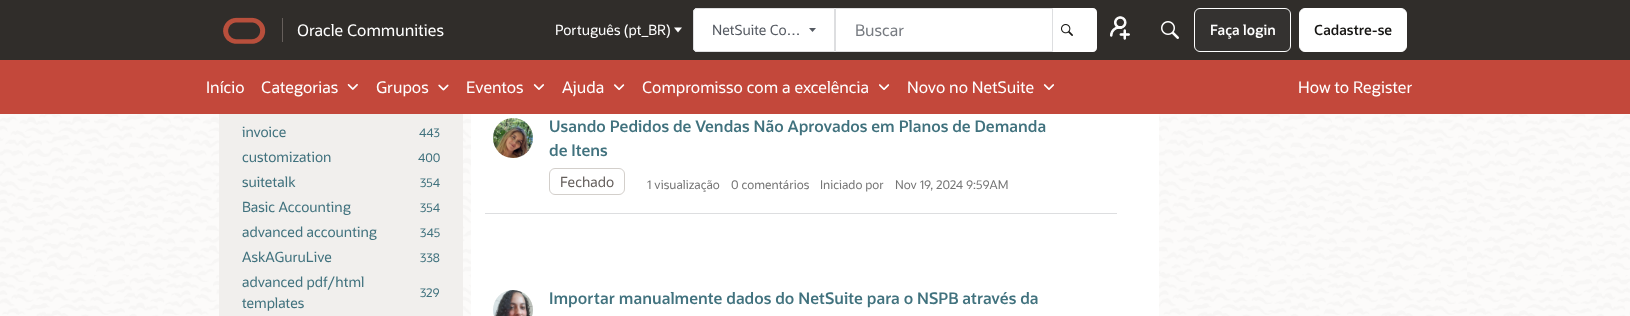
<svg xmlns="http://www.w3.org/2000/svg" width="1630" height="316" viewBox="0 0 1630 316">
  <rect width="100%" height="100%" fill="#fff"/>
  <path d="M0 0h1630v60H0z" fill="#302d2a"/>
  <image x="223" y="17" width="43" height="27" href="img/1.png"/>
  <path d="M282 18h1v24H282z" fill="#665f5b"/>
  <path d="M674 27.5H682L678 32.5Z" fill="#fff"/>
  <path d="M697 8H1053V52H697C695 52 693 50 693 48V12C693 10 695 8 697 8Z" fill="#fff"/>
  <path d="M697 8.5H834.5V51.5H697C695 51.5 693.5 50 693.5 48V12C693.5 10 695 8.5 697 8.5Z" fill="#fff" stroke="#dddee0"/>
  <path d="M809 28H816L812.5 32Z" fill="#555a62"/>
  <path d="M835.5 8.5h217v43H835.5z" fill="none" stroke="#dddee0"/>
  <path d="M1053 8H1093C1095 8 1097 10 1097 12V48C1097 50 1095 52 1093 52H1053Z" fill="#fff"/>
  <image x="1061" y="24" width="12" height="12" href="img/2.png"/>
  <image x="1110" y="16" width="20" height="24" href="img/3.png"/>
  <image x="1161" y="21" width="18" height="18" href="img/4.png"/>
  <rect x="1194.5" y="8.5" width="96" height="43" rx="5.5" fill="#343230" stroke="#fff"/>
  <rect x="1299.5" y="8.5" width="107" height="43" rx="5.5" fill="#fff" stroke="#fff"/>
  <path d="M0 60h1630v54H0z" fill="#c3483b"/>
  <image x="347" y="84" width="11" height="6" href="img/5.png"/>
  <image x="438" y="84" width="11" height="7" href="img/6.png"/>
  <image x="533" y="84" width="11" height="6" href="img/7.png"/>
  <image x="614" y="84" width="11" height="7" href="img/8.png"/>
  <image x="879" y="84" width="11" height="6" href="img/9.png"/>
  <image x="1043" y="84" width="11" height="6" href="img/10.png"/>
  <image x="0" y="114" width="1630" height="202" href="img/11.png"/>
  <path d="M219 114h244v202H219z" fill="#f1efed"/>
  <path d="M471 114h688v202H471z" fill="#fff"/>
  <image x="493" y="118" width="40" height="40" href="img/12.png"/>
  <rect x="549.5" y="168.5" width="75" height="26" rx="5.5" fill="none" stroke="#d3cfcb"/>
  <path d="M485 213h632v1H485z" fill="#dddee0"/>
  <image x="493" y="290" width="40" height="26" href="img/13.png"/>
  <text x="297" y="36" font-family="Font" font-size="16" fill="#fff">Oracle Communities</text>
  <text x="555" y="35" font-family="Font" font-size="14" fill="#fff">Português (pt_BR)</text>
  <text x="712" y="35" font-family="Font" font-size="14" fill="#555a62">NetSuite Co…</text>
  <text x="855" y="36" font-family="Font" font-size="16" fill="#777b81">Buscar</text>
  <text x="1210" y="35" font-family="Font" font-size="14" font-weight="600" fill="#fff">Faça login</text>
  <text x="1314" y="35" font-family="Font" font-size="14" font-weight="600" fill="#161513">Cadastre-se</text>
  <g font-family="Font" font-size="16" fill="#fff">
    <text x="206" y="93">Início</text>
    <text x="261" y="93">Categorias</text>
    <text x="376" y="93">Grupos</text>
    <text x="466" y="93">Eventos</text>
    <text x="562" y="93">Ajuda</text>
    <text x="642" y="93">Compromisso com a excelência</text>
    <text x="907" y="93">Novo no NetSuite</text>
    <text x="1298" y="93">How to Register</text>
  </g>
  <text x="242" y="137" font-family="Font" font-size="14" fill="#41727e">invoice</text>
  <text x="419" y="137" font-family="Font" font-size="12" fill="#41727e">443</text>
  <text x="242" y="162" font-family="Font" font-size="14" fill="#41727e">customization</text>
  <text x="418" y="162" font-family="Font" font-size="12" fill="#41727e">400</text>
  <text x="242" y="187" font-family="Font" font-size="14" fill="#41727e">suitetalk</text>
  <text x="420" y="187" font-family="Font" font-size="12" fill="#41727e">354</text>
  <text x="242" y="212" font-family="Font" font-size="14" fill="#41727e">Basic Accounting</text>
  <text x="420" y="212" font-family="Font" font-size="12" fill="#41727e">354</text>
  <text x="242" y="237" font-family="Font" font-size="14" fill="#41727e">advanced accounting</text>
  <text x="420" y="237" font-family="Font" font-size="12" fill="#41727e">345</text>
  <text x="242" y="262" font-family="Font" font-size="14" fill="#41727e">AskAGuruLive</text>
  <text x="420" y="262" font-family="Font" font-size="12" fill="#41727e">338</text>
  <text x="242" y="287" font-family="Font" font-size="14" fill="#41727e">advanced pdf/html</text>
  <text x="420" y="297" font-family="Font" font-size="12" fill="#41727e">329</text>
  <text x="242" y="308" font-family="Font" font-size="14" fill="#41727e">templates</text>
  <g font-family="Font" font-size="16" font-weight="600" fill="#41727e">
    <text x="549" y="132">Usando Pedidos de Vendas Não Aprovados em Planos de Demanda</text>
    <text x="549" y="156">de Itens</text>
  </g>
  <text x="560" y="187" font-family="Font" font-size="14" fill="#655f5c">Fechado</text>
  <g font-family="Font" font-size="12" fill="#767676">
    <text x="647" y="189">1 visualização</text>
    <text x="731" y="189">0 comentários</text>
    <text x="820" y="189">Iniciado por</text>
    <text x="895" y="189">Nov 19, 2024 9:59AM</text>
  </g>
  <text x="549" y="304" font-family="Font" font-size="16" font-weight="600" fill="#41727e">Importar manualmente dados do NetSuite para o NSPB através da</text>
</svg>
